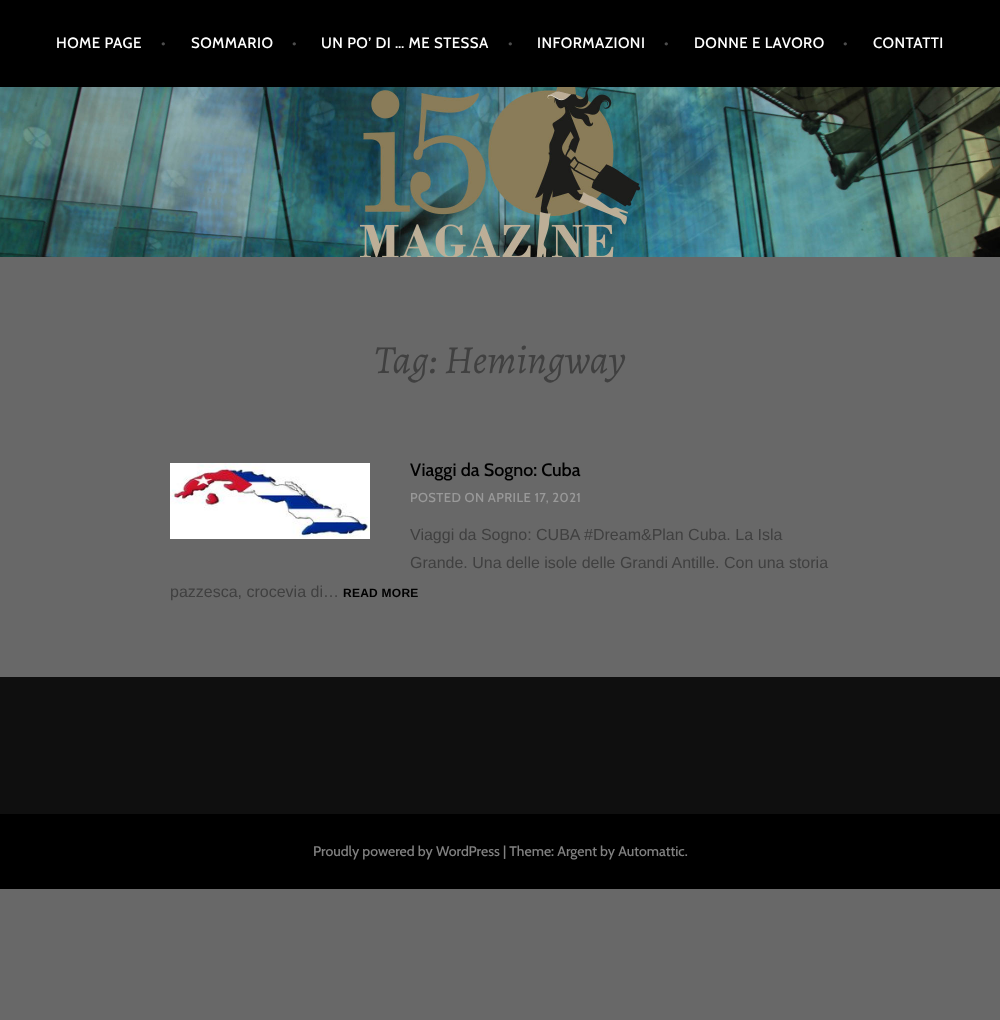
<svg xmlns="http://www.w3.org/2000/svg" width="1000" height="1020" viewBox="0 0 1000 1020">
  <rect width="100%" height="100%" fill="#686868"/>
  <path d="M0 0h1000v87H0z" fill="#000"/>
  <image x="0" y="87" width="1000" height="170" href="img/1.png"/>
  <image x="170" y="463" width="200" height="76" href="img/2.png"/>
  <path d="M0 677h1000v137H0z" fill="#0f0f0f"/>
  <path d="M0 814h1000v75H0z" fill="#000"/>
  <text x="56" y="48" font-family="Cabin" font-size="15" font-weight="500" letter-spacing="0.45" fill="#fff">HOME PAGE</text>
  <text x="161" y="48" font-family="Cabin" font-size="15" font-weight="500" letter-spacing="0.45" fill="#4d4d4d">•</text>
  <text x="191" y="48" font-family="Cabin" font-size="15" font-weight="500" letter-spacing="0.45" fill="#fff">SOMMARIO</text>
  <text x="292" y="48" font-family="Cabin" font-size="15" font-weight="500" letter-spacing="0.45" fill="#4d4d4d">•</text>
  <text x="321" y="48" font-family="Cabin" font-size="15" font-weight="500" letter-spacing="0.45" fill="#fff">UN PO’ DI … ME STESSA</text>
  <text x="508" y="48" font-family="Cabin" font-size="15" font-weight="500" letter-spacing="0.45" fill="#4d4d4d">•</text>
  <text x="537" y="48" font-family="Cabin" font-size="15" font-weight="500" letter-spacing="0.45" fill="#fff">INFORMAZIONI</text>
  <text x="664" y="48" font-family="Cabin" font-size="15" font-weight="500" letter-spacing="0.45" fill="#4d4d4d">•</text>
  <text x="694" y="48" font-family="Cabin" font-size="15" font-weight="500" letter-spacing="0.45" fill="#fff">DONNE E LAVORO</text>
  <text x="843" y="48" font-family="Cabin" font-size="15" font-weight="500" letter-spacing="0.45" fill="#4d4d4d">•</text>
  <text x="873" y="48" font-family="Cabin" font-size="15" font-weight="500" letter-spacing="0.45" fill="#fff">CONTATTI</text>
  <text x="374" y="373" font-family="Alegreya" font-size="40" font-style="italic" fill="#404040">Tag: Hemingway</text>
  <text x="410" y="476" font-family="Cabin" font-size="18" font-weight="500" fill="#000">Viaggi da Sogno: Cuba</text>
  <text x="410" y="502" font-family="Cabin" font-size="13" font-weight="500" letter-spacing="0.4" fill="#999">POSTED ON APRILE 17, 2021</text>
  <g font-family="Liberation Sans" font-size="16" fill="#404040">
    <text x="410" y="540">Viaggi da Sogno: CUBA #Dream&amp;Plan Cuba. La Isla</text>
    <text x="410" y="568">Grande. Una delle isole delle Grandi Antille. Con una storia</text>
    <text x="170" y="597">pazzesca, crocevia di…</text>
  </g>
  <text x="343" y="597" font-family="Liberation Sans" font-size="12" font-weight="bold" letter-spacing="0.25" fill="#000">READ MORE</text>
  <text x="313" y="856" font-family="Cabin" font-size="14" font-weight="500" fill="#808080">Proudly powered by WordPress | Theme: Argent by Automattic.</text>
</svg>
